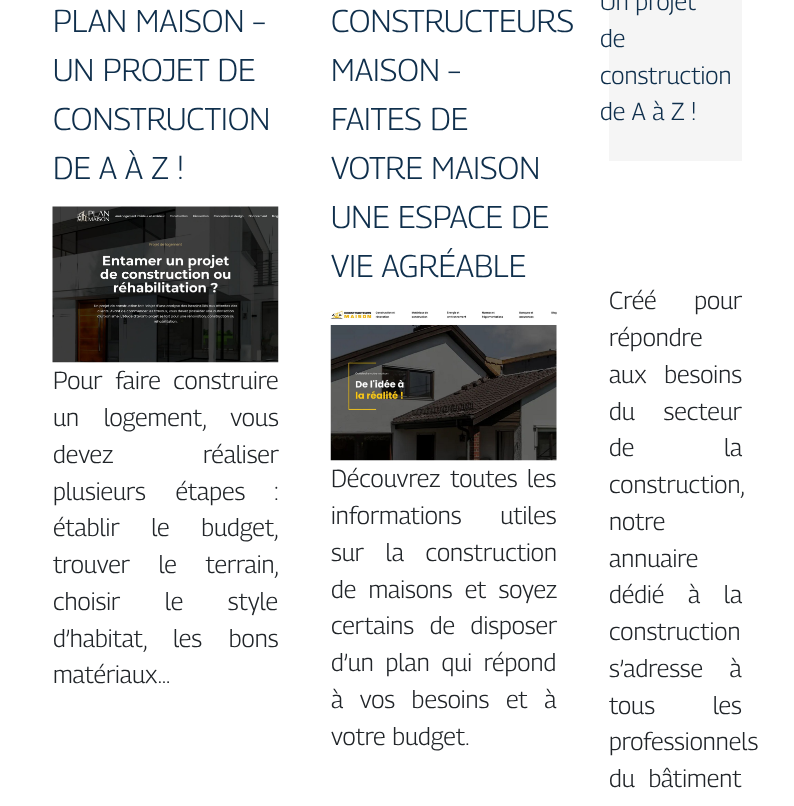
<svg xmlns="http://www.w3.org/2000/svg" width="794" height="806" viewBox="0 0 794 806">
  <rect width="100%" height="100%" fill="#fff"/>
  <image x="52" y="206" width="227" height="157" href="img/1.png"/>
  <image x="330" y="310" width="227" height="151" href="img/2.png"/>
  <path d="M609 0h133v161H609z" fill="#f5f5f5"/>
  <g font-family="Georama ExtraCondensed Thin" font-size="31.5" font-weight="100" fill="#0f2f4c">
    <text x="53" y="32">PLAN MAISON –</text>
    <text x="53" y="81">UN PROJET DE</text>
    <text x="53" y="130">CONSTRUCTION</text>
    <text x="53" y="179">DE A À Z !</text>
  </g>
  <g font-family="Georama ExtraCondensed Thin" font-size="24.5" font-weight="100" fill="#212529">
    <text x="53" y="389" word-spacing="6">Pour faire construire</text>
    <text x="53" y="426" word-spacing="18">un logement, vous</text>
    <text x="53" y="463" word-spacing="83">devez réaliser</text>
    <text x="53" y="500" word-spacing="23">plusieurs étapes :</text>
    <text x="53" y="536" word-spacing="25">établir le budget,</text>
    <text x="53" y="573" word-spacing="22">trouver le terrain,</text>
    <text x="53" y="610" word-spacing="38">choisir le style</text>
    <text x="53" y="647" word-spacing="20">d’habitat, les bons</text>
    <text x="53" y="683">matériaux…</text>
  </g>
  <g font-family="Georama ExtraCondensed Thin" font-size="31.5" font-weight="100" fill="#0f2f4c">
    <text x="331" y="32">CONSTRUCTEURS</text>
    <text x="331" y="81">MAISON –</text>
    <text x="331" y="130">FAITES DE</text>
    <text x="331" y="179">VOTRE MAISON</text>
    <text x="331" y="228">UNE ESPACE DE</text>
    <text x="331" y="277">VIE AGRÉABLE</text>
  </g>
  <g font-family="Georama ExtraCondensed Thin" font-size="24.5" font-weight="100" fill="#212529">
    <text x="331" y="487" word-spacing="3">Découvrez toutes les</text>
    <text x="331" y="524" word-spacing="32">informations utiles</text>
    <text x="331" y="561" word-spacing="15">sur la construction</text>
    <text x="331" y="598" word-spacing="5.5">de maisons et soyez</text>
    <text x="331" y="634" word-spacing="9">certains de disposer</text>
    <text x="331" y="671" word-spacing="5">d’un plan qui répond</text>
    <text x="331" y="708" word-spacing="10">à vos besoins et à</text>
    <text x="331" y="745">votre budget.</text>
  </g>
  <g font-family="Georama ExtraCondensed Thin" font-size="24.5" font-weight="100" fill="#0f2f4c">
    <text x="600" y="10">Un projet</text>
    <text x="600" y="47">de</text>
    <text x="600" y="84">construction</text>
    <text x="600" y="120">de A à Z !</text>
  </g>
  <g font-family="Georama ExtraCondensed Thin" font-size="24.5" font-weight="100" fill="#212529">
    <text x="609" y="309" word-spacing="31">Créé pour</text>
    <text x="609" y="346">répondre</text>
    <text x="609" y="383" word-spacing="11">aux besoins</text>
    <text x="609" y="420" word-spacing="22">du secteur</text>
    <text x="609" y="456" word-spacing="83">de la</text>
    <text x="609" y="493">construction,</text>
    <text x="609" y="530">notre</text>
    <text x="609" y="567">annuaire</text>
    <text x="609" y="603" word-spacing="17">dédié à la</text>
    <text x="609" y="640">construction</text>
    <text x="609" y="677" word-spacing="20">s’adresse à</text>
    <text x="609" y="714" word-spacing="51">tous les</text>
    <text x="609" y="750">professionnels</text>
    <text x="609" y="787" word-spacing="7">du bâtiment</text>
  </g>
</svg>
